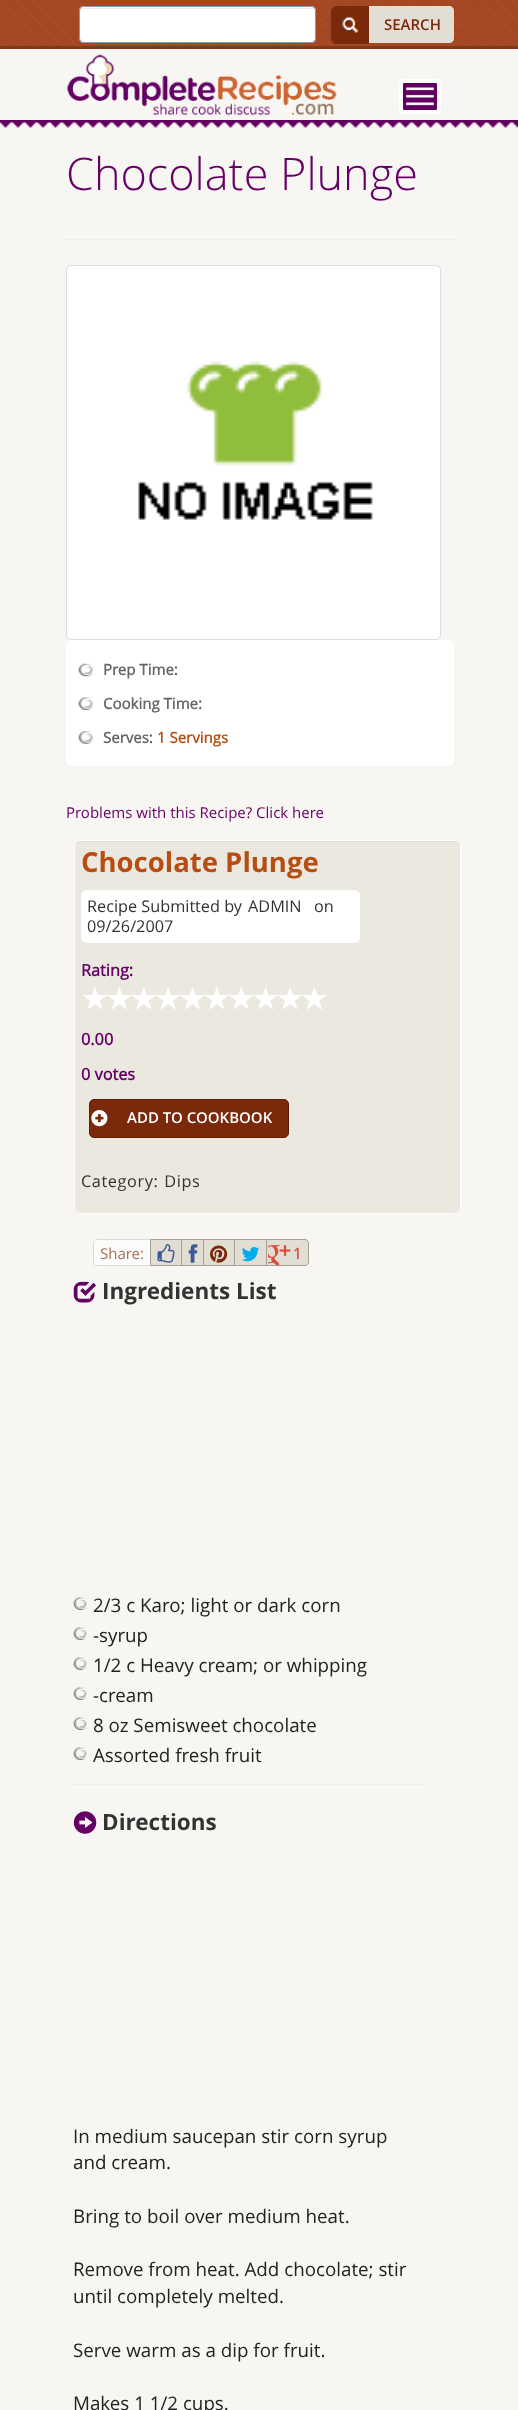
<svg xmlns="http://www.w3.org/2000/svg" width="518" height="2410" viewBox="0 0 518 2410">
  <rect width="100%" height="100%" fill="#f7f6f2"/>
  <image x="0" y="0" width="518" height="46" href="img/1.png"/>
  <path d="M0 46h518v3H0z" fill="#81391c"/>
  <rect x="79" y="6" width="237" height="37" rx="5" fill="#fff"/>
  <path d="M84 9H311C313 9 315 10 315 12C315 10 313 8 311 8H84C82 8 80 10 80 12C80 10 82 9 84 9Z" fill="#ececec"/>
  <rect x="79.5" y="6.5" width="236" height="36" rx="4.5" fill="none" stroke="#7e9db9"/>
  <path d="M337 6H369V44H337C333.5 44 331 41.5 331 38V12C331 8.5 333.5 6 337 6Z" fill="#7a2a0a"/>
  <image x="342" y="17" width="18" height="17" href="img/2.png"/>
  <path d="M369 6H449C452 6 454 8 454 11V38C454 41 452 43 449 43H369Z" fill="#e2ded3"/>
  <image x="67" y="54" width="270" height="62" href="img/3.png"/>
  <rect x="401" y="81" width="38" height="31" rx="3" fill="#620062" stroke="#fff" stroke-width="4"/>
  <image x="406" y="87" width="28" height="19" href="img/4.png"/>
  <path d="M66 123h388v1H66z" fill="#eee"/>
  <image x="0" y="120" width="518" height="9" href="img/5.png"/>
  <path d="M66 239h388v1H66z" fill="#eee"/>
  <rect x="66.5" y="265.5" width="374" height="374" rx="4.5" fill="#fff" stroke="#ddd"/>
  <image x="138" y="361" width="235" height="159" href="img/6.png"/>
  <rect x="66" y="640" width="388" height="126" rx="6" fill="#fff"/>
  <image x="78" y="663" width="15" height="14" href="img/7.png"/>
  <image x="78" y="697" width="15" height="13" href="img/8.png"/>
  <image x="78" y="731" width="15" height="13" href="img/9.png"/>
  <rect x="74" y="840" width="387" height="374" rx="6" fill="#ebe8df"/>
  <path d="M80 842H455C458 842 460 845 460 848C460 845 459 841 455 841H80C76 841 75 845 75 848C75 845 77 842 80 842Z" fill="#dfdcd4"/>
  <rect x="74.5" y="840.5" width="386" height="373" rx="5.5" fill="none" stroke="#fff"/>
  <rect x="81" y="890" width="279" height="53" rx="6" fill="#fff"/>
  <image x="82" y="987" width="245" height="23" href="img/10.png"/>
  <rect x="89.5" y="1099.5" width="199" height="38" rx="4.5" fill="#7a2a0a" stroke="#591e07"/>
  <image x="91" y="1110" width="17" height="17" href="img/11.png"/>
  <path d="M97 1239.5H150.5V1265.5H97C95 1265.5 93.5 1264 93.5 1262V1243C93.5 1241 95 1239.5 97 1239.5Z" fill="#fcfcfa" stroke="#dbdbd9"/>
  <path d="M151 1240h30v25H151z" fill="#e2ded3"/>
  <path d="M150.5 1239.5h32v26H150.5z" fill="none" stroke="#a4a199"/>
  <image x="157" y="1244" width="18" height="19" href="img/12.png"/>
  <path d="M181.5 1239.5h22v26H181.5z" fill="#e2ded3" stroke="#a4a199"/>
  <image x="188" y="1244" width="10" height="19" href="img/13.png"/>
  <path d="M203.5 1239.5h31v26H203.5z" fill="#e2ded3" stroke="#a4a199"/>
  <image x="210" y="1245" width="18" height="18" href="img/14.png"/>
  <path d="M235 1240h31v25H235z" fill="#e2ded3"/>
  <path d="M234.5 1239.5h33v26H234.5z" fill="none" stroke="#a4a199"/>
  <image x="242" y="1247" width="18" height="15" href="img/15.png"/>
  <path d="M266.5 1239.5H305C307 1239.5 308.5 1241 308.5 1243V1262C308.5 1264 307 1265.5 305 1265.5H266.5Z" fill="#e2ded3" stroke="#a4a199"/>
  <image x="268" y="1245" width="23" height="20" href="img/16.png"/>
  <image x="73" y="1281" width="23" height="22" href="img/17.png"/>
  <path d="M74 1784h349v1H74z" fill="#eee"/>
  <image x="73" y="1597" width="14" height="13" href="img/18.png"/>
  <image x="73" y="1627" width="14" height="13" href="img/18.png"/>
  <image x="73" y="1657" width="14" height="13" href="img/18.png"/>
  <image x="73" y="1687" width="14" height="13" href="img/18.png"/>
  <image x="73" y="1717" width="14" height="13" href="img/18.png"/>
  <image x="73" y="1747" width="14" height="13" href="img/18.png"/>
  <image x="73" y="1811" width="24" height="23" href="img/19.png"/>
  <text x="384" y="30" font-family="Open Sans" font-size="15" font-weight="600" fill="#7a2a0a">SEARCH</text>
  <text x="66" y="190" font-family="Open Sans" font-size="45" font-weight="300" fill="#606">Chocolate Plunge</text>
  <g font-family="'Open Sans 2'" font-size="15" font-weight="bold" fill="#666">
    <text x="103" y="675">Prep Time:</text>
    <text x="103" y="709">Cooking Time:</text>
    <text x="103" y="743">Serves:</text>
  </g>
  <text x="157" y="743" font-family="'Open Sans 2'" font-size="15" font-weight="bold" fill="#b74d13">1 Servings</text>
  <text x="66" y="818" font-family="Open Sans" font-size="15" fill="#606">Problems with this Recipe? Click here</text>
  <text x="81" y="872" font-family="Open Sans" font-size="27.5" font-weight="bold" fill="#b74d13">Chocolate Plunge</text>
  <g font-family="Open Sans" font-size="16.25" fill="#333">
    <text x="87" y="912">Recipe Submitted by</text>
    <text x="248" y="912">ADMIN</text>
    <text x="314" y="912">on</text>
    <text x="87" y="932">09/26/2007</text>
  </g>
  <g font-family="'Open Sans 2'" font-size="16.25" font-weight="bold" fill="#606">
    <text x="81" y="976">Rating:</text>
    <text x="81" y="1045">0.00</text>
    <text x="81" y="1080">0 votes</text>
  </g>
  <text x="127" y="1123" font-family="Open Sans" font-size="15" font-weight="600" fill="#fff">ADD TO COOKBOOK</text>
  <text x="81" y="1187" word-spacing="1" font-family="Open Sans" font-size="16.25" letter-spacing="0.6" fill="#333">Category: Dips</text>
  <text x="100" y="1259" font-family="Open Sans" font-size="15" fill="#a6715b">Share:</text>
  <text x="293" y="1259" font-family="'Open Sans 2'" font-size="15" font-weight="bold" fill="#dd4b39">1</text>
  <text x="102" y="1299" font-family="Open Sans" font-size="22.5" font-weight="bold" fill="#333">Ingredients List</text>
  <g font-family="Open Sans" font-size="18.75" fill="#222">
    <text x="93" y="1612">2/3 c Karo; light or dark corn</text>
    <text x="93" y="1642">-syrup</text>
    <text x="93" y="1672">1/2 c Heavy cream; or whipping</text>
    <text x="93" y="1702">-cream</text>
    <text x="93" y="1732">8 oz Semisweet chocolate</text>
    <text x="93" y="1762">Assorted fresh fruit</text>
  </g>
  <text x="102" y="1830" font-family="Open Sans" font-size="22.5" font-weight="bold" fill="#333">Directions</text>
  <g font-family="Open Sans" font-size="18.75" fill="#222">
    <text x="73" y="2143">In medium saucepan stir corn syrup</text>
    <text x="73" y="2169">and cream.</text>
    <text x="73" y="2223">Bring to boil over medium heat.</text>
    <text x="73" y="2276">Remove from heat. Add chocolate; stir</text>
    <text x="73" y="2303">until completely melted.</text>
    <text x="73" y="2357">Serve warm as a dip for fruit.</text>
    <text x="73" y="2410">Makes 1 1/2 cups.</text>
  </g>
</svg>
